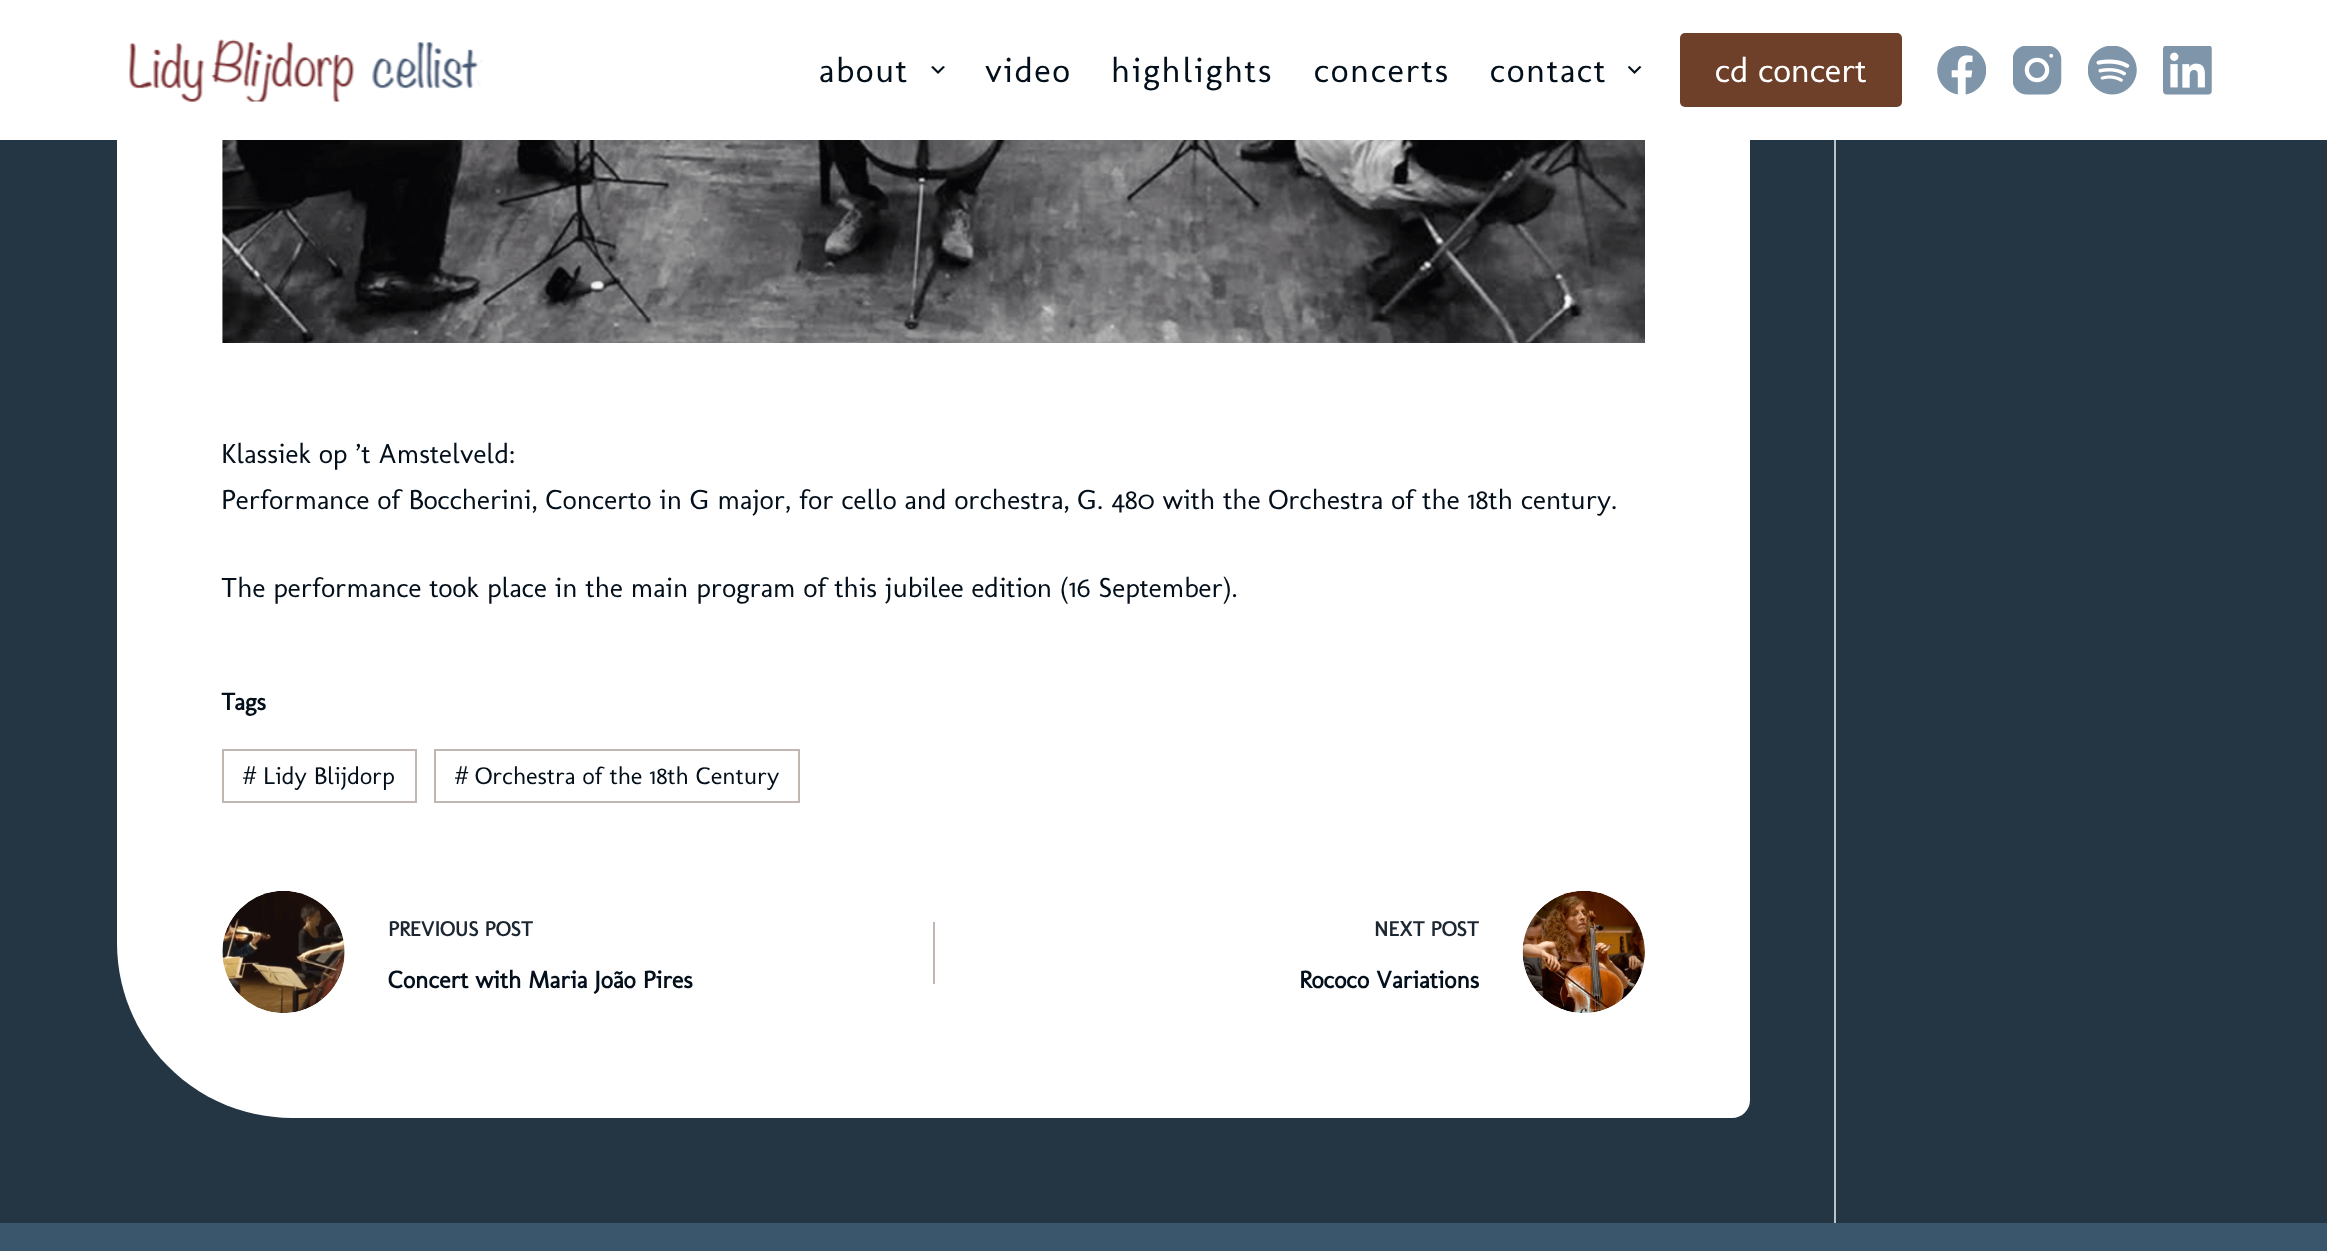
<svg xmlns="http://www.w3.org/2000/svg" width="2327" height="1251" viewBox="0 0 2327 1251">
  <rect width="100%" height="100%" fill="#243544"/>
  <path d="M135-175H1575C1671.5-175 1750-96.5 1750 0V1100C1750 1110 1742 1118 1732 1118H292C195.5 1118 117 1039.5 117 943V-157C117-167 125-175 135-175Z" fill="#fff"/>
  <path d="M0 0h2327v140H0z" fill="#fff"/>
  <image x="129" y="39" width="354" height="63" href="img/1.png"/>
  <image x="931" y="66" width="14" height="8" href="img/2.png"/>
  <image x="1628" y="66" width="14" height="8" href="img/3.png"/>
  <rect x="1680" y="33" width="222" height="74" rx="5" fill="#6e3f29"/>
  <image x="1937" y="46" width="49" height="49" href="img/4.png"/>
  <image x="2013" y="46" width="49" height="49" href="img/5.png"/>
  <image x="2088" y="46" width="49" height="49" href="img/6.png"/>
  <image x="2163" y="46" width="49" height="49" href="img/7.png"/>
  <image x="222" y="140" width="1423" height="203" href="img/8.png"/>
  <path d="M223 750h193v52H223z" fill="none" stroke="#c2b7b0" stroke-width="2"/>
  <path d="M435 750h364v52H435z" fill="none" stroke="#c2b7b0" stroke-width="2"/>
  <image x="222" y="891" width="123" height="122" href="img/9.png"/>
  <path d="M933 922h2v62H933z" fill="#c2b7b0"/>
  <image x="1522" y="891" width="123" height="122" href="img/10.png"/>
  <path d="M1834 140h2v1083H1834z" fill="#bac2ca"/>
  <path d="M0 1223h2327v28H0z" fill="#39566d"/>
  <g font-family="Molengo" font-size="35" letter-spacing="1.75" fill="#030f1a">
    <text x="819" y="82">about</text>
    <text x="985" y="82">video</text>
    <text x="1111" y="82">highlights</text>
    <text x="1314" y="82">concerts</text>
    <text x="1490" y="82">contact</text>
  </g>
  <text x="1715" y="82" font-family="Molengo" font-size="35" fill="#fff">cd concert</text>
  <g font-family="Molengo" font-size="28" fill="#030f1a">
    <text x="221" y="463">Klassiek op ’t Amstelveld:</text>
    <text x="221" y="509">Performance of Boccherini, Concerto in G major, for cello and orchestra, G. 480 with the Orchestra of the 18th century.</text>
    <text x="221" y="597">The performance took place in the main program of this jubilee edition (16 September).</text>
  </g>
  <text x="221" y="710" font-family="Molengo" font-size="24.5" font-weight="bold" fill="#030f1a">Tags</text>
  <g font-family="Molengo" font-size="24.5" fill="#030f1a">
    <text x="242" y="784"># Lidy Blijdorp</text>
    <text x="454" y="784"># Orchestra of the 18th Century</text>
  </g>
  <text x="388" y="936" font-family="Molengo" font-size="21" font-weight="bold" fill="#1c2731">PREVIOUS POST</text>
  <text x="388" y="988" font-family="Molengo" font-size="24.5" font-weight="bold" fill="#030f1a">Concert with Maria João Pires</text>
  <text x="1374" y="936" font-family="Molengo" font-size="21" font-weight="bold" fill="#1c2731">NEXT POST</text>
  <text x="1299" y="988" font-family="Molengo" font-size="24.5" font-weight="bold" fill="#030f1a">Rococo Variations</text>
</svg>
